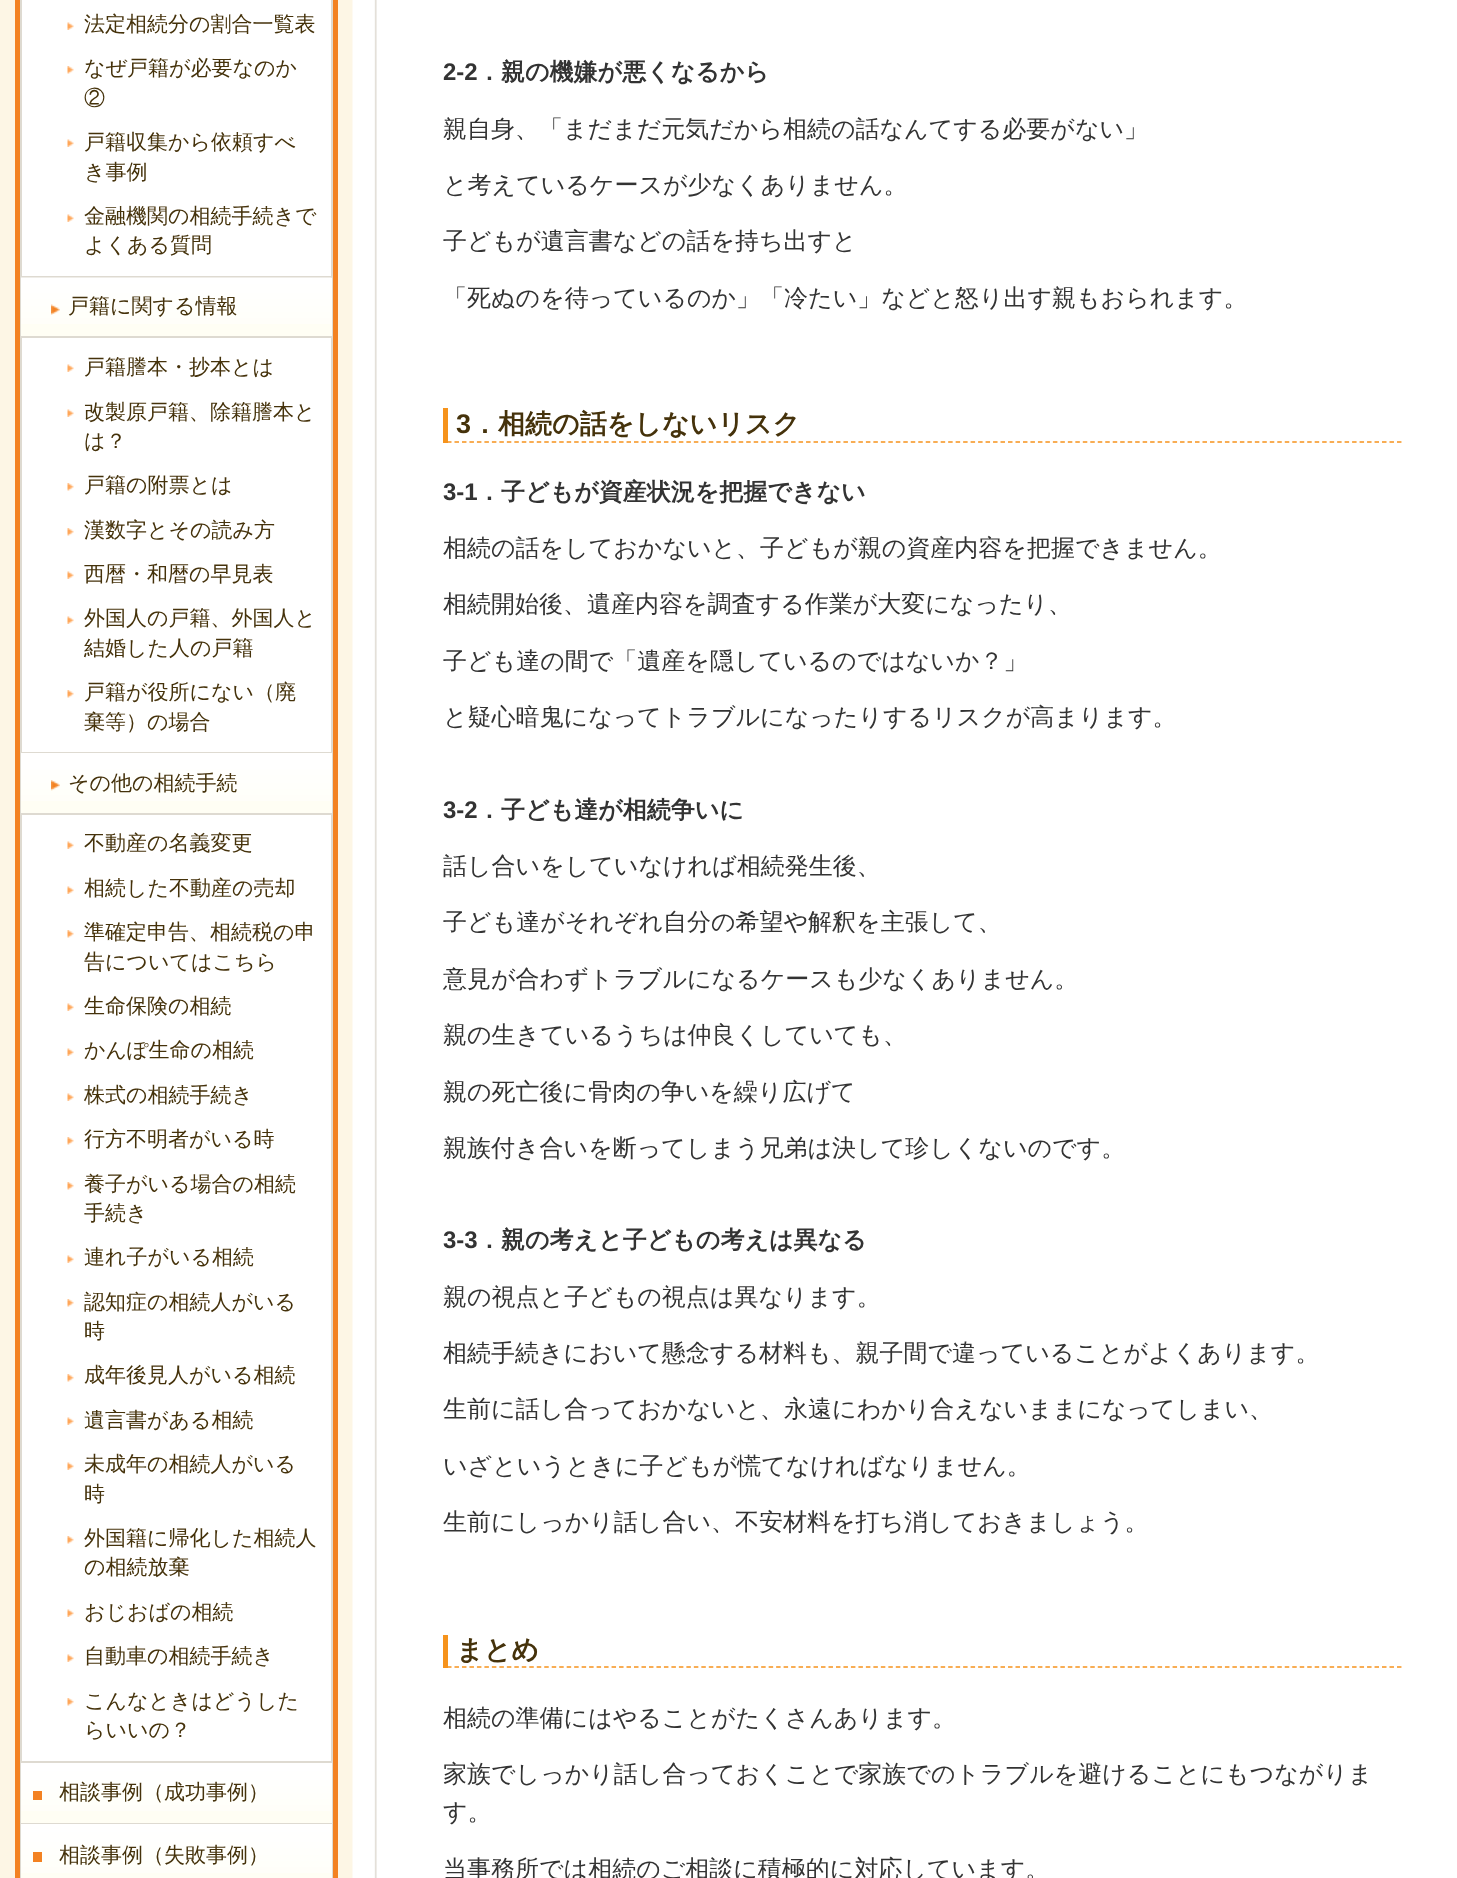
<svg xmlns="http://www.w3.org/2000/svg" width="1457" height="1878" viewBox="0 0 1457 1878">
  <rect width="100%" height="100%" fill="#fff"/>
  <image x="0" y="0" width="377" height="1878" href="img/1.png"/>
  <path d="M22 0h309v1761H22z" fill="#fff"/>
  <path d="M333 0h5v1878H333z" fill="#f38222"/>
  <path d="M15 0h5v1878H15z" fill="#f38222"/>
  <path d="M21 -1h311v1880H21z" fill="none" stroke="#dedad1" stroke-width="2"/>
  <path d="M21 276h311v2H21z" fill="#dedad1"/>
  <image x="67" y="22" width="7" height="8" href="img/2.png"/>
  <image x="67" y="66" width="7" height="8" href="img/3.png"/>
  <image x="67" y="139" width="7" height="8" href="img/2.png"/>
  <image x="67" y="214" width="7" height="8" href="img/2.png"/>
  <path d="M21 752h311v1H21z" fill="#dedad1"/>
  <path d="M21 278h311v58H21z" fill="#fffef4"/>
  <image x="21" y="277" width="311" height="47" href="img/4.png"/>
  <image x="51" y="304" width="9" height="11" href="img/5.png"/>
  <path d="M21 336h311v2H21z" fill="#dedad1"/>
  <image x="67" y="364" width="7" height="8" href="img/2.png"/>
  <image x="67" y="409" width="7" height="8" href="img/2.png"/>
  <image x="67" y="483" width="7" height="8" href="img/3.png"/>
  <image x="67" y="528" width="7" height="8" href="img/3.png"/>
  <image x="67" y="571" width="7" height="8" href="img/2.png"/>
  <image x="67" y="616" width="7" height="8" href="img/2.png"/>
  <image x="67" y="690" width="7" height="8" href="img/3.png"/>
  <path d="M21 1761h311v2H21z" fill="#dedad1"/>
  <path d="M21 753h311v60H21z" fill="#fffef4"/>
  <image x="21" y="753" width="311" height="48" href="img/6.png"/>
  <image x="51" y="780" width="9" height="11" href="img/7.png"/>
  <path d="M21 813h311v2H21z" fill="#dedad1"/>
  <image x="67" y="841" width="7" height="8" href="img/2.png"/>
  <image x="67" y="886" width="7" height="8" href="img/2.png"/>
  <image x="67" y="930" width="7" height="8" href="img/3.png"/>
  <image x="67" y="1003" width="7" height="8" href="img/2.png"/>
  <image x="67" y="1048" width="7" height="8" href="img/2.png"/>
  <image x="67" y="1093" width="7" height="8" href="img/2.png"/>
  <image x="67" y="1137" width="7" height="8" href="img/3.png"/>
  <image x="67" y="1182" width="7" height="8" href="img/3.png"/>
  <image x="67" y="1255" width="7" height="8" href="img/2.png"/>
  <image x="67" y="1299" width="7" height="8" href="img/3.png"/>
  <image x="67" y="1374" width="7" height="8" href="img/3.png"/>
  <image x="67" y="1417" width="7" height="8" href="img/2.png"/>
  <image x="67" y="1462" width="7" height="8" href="img/2.png"/>
  <image x="67" y="1536" width="7" height="8" href="img/3.png"/>
  <image x="67" y="1609" width="7" height="8" href="img/2.png"/>
  <image x="67" y="1654" width="7" height="8" href="img/2.png"/>
  <image x="67" y="1698" width="7" height="8" href="img/3.png"/>
  <path d="M21 1765h311v58H21z" fill="#fffef4"/>
  <image x="21" y="1765" width="311" height="46" href="img/8.png"/>
  <path d="M21 1763h311v2H21z" fill="#fff"/>
  <path d="M21 1823h311v1H21z" fill="#dedad1"/>
  <path d="M33 1791h9v9H33z" fill="#f38222"/>
  <path d="M21 1826h311v52H21z" fill="#fffef4"/>
  <image x="21" y="1826" width="311" height="47" href="img/9.png"/>
  <path d="M21 1824h311v2H21z" fill="#fff"/>
  <path d="M33 1852h9v10H33z" fill="#f38222"/>
  <path d="M443 408h5v35H443z" fill="#f6931c"/>
  <path d="M447 442H1402.5" fill="none" stroke="#f6931c" stroke-width="1.5" stroke-dasharray="4.5 2.98"/>
  <path d="M443 1635h5v33H443z" fill="#f6931c"/>
  <path d="M447 1667H1402.5" fill="none" stroke="#f6931c" stroke-width="1.5" stroke-dasharray="4.5 2.98"/>
  <g font-family="WenQuanYi Zen Hei" font-size="21" font-weight="500" fill="#45320b">
    <text x="84" y="31">法定相続分の割合一覧表</text>
    <text x="84" y="75">なぜ戸籍が必要なのか</text>
    <text x="84" y="105">②</text>
    <text x="84" y="149">戸籍収集から依頼すべ</text>
    <text x="84" y="179">き事例</text>
    <text x="84" y="223">金融機関の相続手続きで</text>
    <text x="84" y="252">よくある質問</text>
    <text x="68" y="313">戸籍に関する情報</text>
    <text x="84" y="374">戸籍謄本・抄本とは</text>
    <text x="84" y="419">改製原戸籍、除籍謄本と</text>
    <text x="84" y="448">は？</text>
    <text x="84" y="492">戸籍の附票とは</text>
    <text x="84" y="537">漢数字とその読み方</text>
    <text x="84" y="581">西暦・和暦の早見表</text>
    <text x="84" y="625">外国人の戸籍、外国人と</text>
    <text x="84" y="655">結婚した人の戸籍</text>
    <text x="84" y="699">戸籍が役所にない（廃</text>
    <text x="84" y="729">棄等）の場合</text>
    <text x="68" y="790">その他の相続手続</text>
    <text x="84" y="850">不動産の名義変更</text>
    <text x="84" y="895">相続した不動産の売却</text>
    <text x="84" y="939">準確定申告、相続税の申</text>
    <text x="84" y="969">告についてはこちら</text>
    <text x="84" y="1013">生命保険の相続</text>
    <text x="84" y="1057">かんぽ生命の相続</text>
    <text x="84" y="1102">株式の相続手続き</text>
    <text x="84" y="1146">行方不明者がいる時</text>
    <text x="84" y="1191">養子がいる場合の相続</text>
    <text x="84" y="1220">手続き</text>
    <text x="84" y="1264">連れ子がいる相続</text>
    <text x="84" y="1309">認知症の相続人がいる</text>
    <text x="84" y="1338">時</text>
    <text x="84" y="1382">成年後見人がいる相続</text>
    <text x="84" y="1427">遺言書がある相続</text>
    <text x="84" y="1471">未成年の相続人がいる</text>
    <text x="84" y="1501">時</text>
    <text x="84" y="1545">外国籍に帰化した相続人</text>
    <text x="84" y="1574">の相続放棄</text>
    <text x="84" y="1619">おじおばの相続</text>
    <text x="84" y="1663">自動車の相続手続き</text>
    <text x="84" y="1708">こんなときはどうした</text>
    <text x="84" y="1737">らいいの？</text>
    <text x="59" y="1799">相談事例（成功事例）</text>
    <text x="59" y="1862">相談事例（失敗事例）</text>
  </g>
  <text x="443" y="80" font-family="Liberation Sans" font-size="24" font-weight="bold" fill="#333">2-2</text>
  <text x="477" y="80" font-family="WenQuanYi Zen Hei" font-size="24" font-weight="bold" fill="#333">．親の機嫌が悪くなるから</text>
  <g font-family="WenQuanYi Zen Hei" font-size="24" font-weight="500" fill="#333">
    <text x="443" y="137">親自身、「まだまだ元気だから相続の話なんてする必要がない」</text>
    <text x="443" y="193">と考えているケースが少なくありません。</text>
    <text x="443" y="249">子どもが遺言書などの話を持ち出すと</text>
    <text x="443" y="306">「死ぬのを待っているのか」「冷たい」などと怒り出す親もおられます。</text>
  </g>
  <text x="456" y="433" font-family="Liberation Sans" font-size="27" font-weight="bold" fill="#45320b">3</text>
  <text x="471" y="433" font-family="WenQuanYi Zen Hei" font-size="27" font-weight="bold" fill="#45320b">．相続の話をしないリスク</text>
  <text x="443" y="500" font-family="Liberation Sans" font-size="24" font-weight="bold" fill="#333">3-1</text>
  <text x="477" y="500" font-family="WenQuanYi Zen Hei" font-size="24" font-weight="bold" fill="#333">．子どもが資産状況を把握できない</text>
  <g font-family="WenQuanYi Zen Hei" font-size="24" font-weight="500" fill="#333">
    <text x="443" y="556">相続の話をしておかないと、子どもが親の資産内容を把握できません。</text>
    <text x="443" y="612">相続開始後、遺産内容を調査する作業が大変になったり、</text>
    <text x="443" y="669">子ども達の間で「遺産を隠しているのではないか？」</text>
    <text x="443" y="725">と疑心暗鬼になってトラブルになったりするリスクが高まります。</text>
  </g>
  <text x="443" y="818" font-family="Liberation Sans" font-size="24" font-weight="bold" fill="#333">3-2</text>
  <text x="477" y="818" font-family="WenQuanYi Zen Hei" font-size="24" font-weight="bold" fill="#333">．子ども達が相続争いに</text>
  <g font-family="WenQuanYi Zen Hei" font-size="24" font-weight="500" fill="#333">
    <text x="443" y="874">話し合いをしていなければ相続発生後、</text>
    <text x="443" y="930">子ども達がそれぞれ自分の希望や解釈を主張して、</text>
    <text x="443" y="987">意見が合わずトラブルになるケースも少なくありません。</text>
    <text x="443" y="1043">親の生きているうちは仲良くしていても、</text>
    <text x="443" y="1100">親の死亡後に骨肉の争いを繰り広げて</text>
    <text x="443" y="1156">親族付き合いを断ってしまう兄弟は決して珍しくないのです。</text>
  </g>
  <text x="443" y="1248" font-family="Liberation Sans" font-size="24" font-weight="bold" fill="#333">3-3</text>
  <text x="477" y="1248" font-family="WenQuanYi Zen Hei" font-size="24" font-weight="bold" fill="#333">．親の考えと子どもの考えは異なる</text>
  <g font-family="WenQuanYi Zen Hei" font-size="24" font-weight="500" fill="#333">
    <text x="443" y="1305">親の視点と子どもの視点は異なります。</text>
    <text x="443" y="1361">相続手続きにおいて懸念する材料も、親子間で違っていることがよくあります。</text>
    <text x="443" y="1417">生前に話し合っておかないと、永遠にわかり合えないままになってしまい、</text>
    <text x="443" y="1474">いざというときに子どもが慌てなければなりません。</text>
    <text x="443" y="1530">生前にしっかり話し合い、不安材料を打ち消しておきましょう。</text>
  </g>
  <text x="456" y="1659" font-family="WenQuanYi Zen Hei" font-size="27" font-weight="bold" fill="#45320b">まとめ</text>
  <g font-family="WenQuanYi Zen Hei" font-size="24" font-weight="500" fill="#333">
    <text x="443" y="1726">相続の準備にはやることがたくさんあります。</text>
    <text x="443" y="1782">家族でしっかり話し合っておくことで家族でのトラブルを避けることにもつながりま</text>
    <text x="443" y="1820">す。</text>
    <text x="443" y="1877">当事務所では相続のご相談に積極的に対応しています。</text>
  </g>
</svg>
